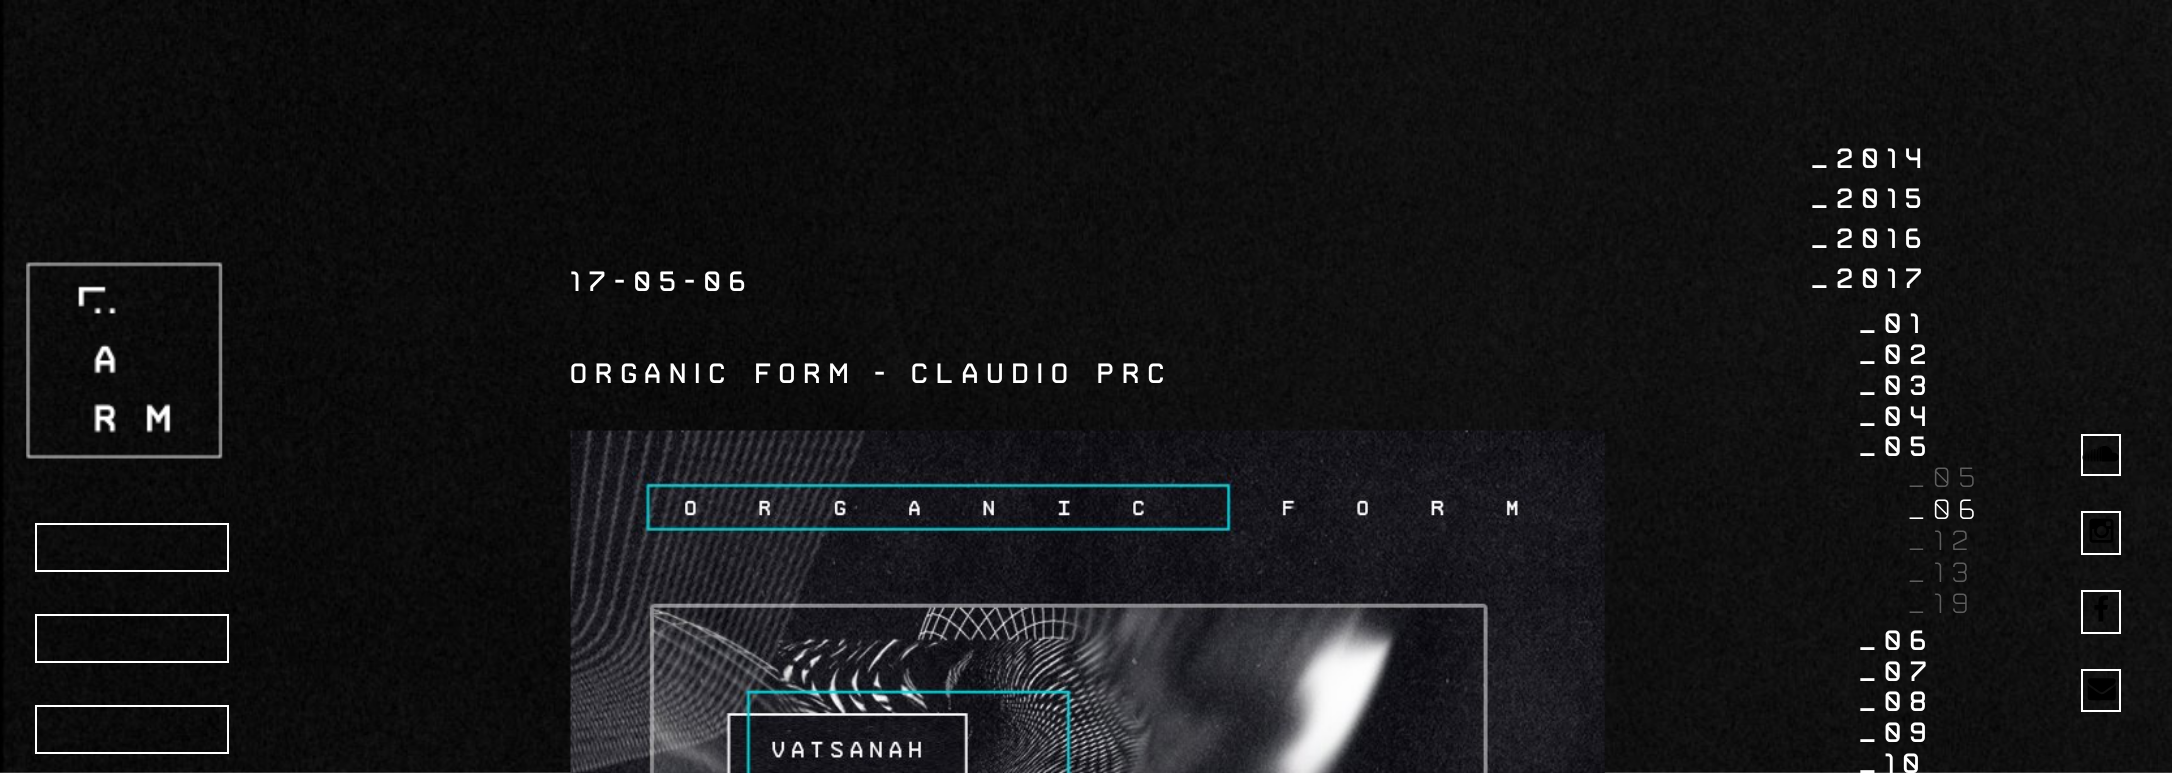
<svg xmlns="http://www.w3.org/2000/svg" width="2172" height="773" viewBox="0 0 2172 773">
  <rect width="100%" height="100%" fill="#fff"/>
  <image x="0" y="0" width="2172" height="773" href="img/1.png"/>
  <image x="26" y="262" width="197" height="197" href="img/2.png"/>
  <path d="M36 524h192v47H36z" fill="none" stroke="#fff" stroke-width="2"/>
  <path d="M36 615h192v47H36z" fill="none" stroke="#fff" stroke-width="2"/>
  <path d="M36 706h192v47H36z" fill="none" stroke="#fff" stroke-width="2"/>
  <image x="570" y="430" width="1035" height="343" href="img/3.png"/>
  <path d="M2082 435h38v40H2082z" fill="none" stroke="#fff" stroke-width="2"/>
  <image x="2082" y="446" width="37" height="16" href="img/4.png"/>
  <path d="M2082 512h38v42H2082z" fill="none" stroke="#fff" stroke-width="2"/>
  <image x="2089" y="518" width="25" height="25" href="img/5.png"/>
  <path d="M2082 591h38v42H2082z" fill="none" stroke="#fff" stroke-width="2"/>
  <image x="2094" y="595" width="14" height="27" href="img/6.png"/>
  <path d="M2082 670h38v41H2082z" fill="none" stroke="#fff" stroke-width="2"/>
  <image x="2087" y="678" width="29" height="23" href="img/7.png"/>
  <g font-family="'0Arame'" font-size="28" letter-spacing="8.4" fill="#fff">
    <text x="570" y="291">17-05-06</text>
    <text x="570" y="383">Organic Form</text>
    <text x="874" y="383">-</text>
    <text x="911" y="383">Claudio PRC</text>
    <text x="1811" y="168">_2014</text>
    <text x="1811" y="208">_2015</text>
    <text x="1811" y="248">_2016</text>
    <text x="1811" y="288">_2017</text>
    <text x="1859" y="333">_01</text>
    <text x="1859" y="364">_02</text>
    <text x="1859" y="395">_03</text>
    <text x="1859" y="426">_04</text>
    <text x="1859" y="456">_05</text>
  </g>
  <text x="1908" y="487" font-family="'0Arame'" font-size="28" font-weight="100" letter-spacing="8.4" fill="#5d5d5d">_05</text>
  <text x="1908" y="519" font-family="'0Arame'" font-size="28" font-weight="100" letter-spacing="8.4" fill="#fff">_06</text>
  <g font-family="'0Arame'" font-size="28" font-weight="100" letter-spacing="8.4" fill="#5d5d5d">
    <text x="1908" y="550">_12</text>
    <text x="1908" y="582">_13</text>
    <text x="1908" y="613">_19</text>
  </g>
  <g font-family="'0Arame'" font-size="28" letter-spacing="8.4" fill="#fff">
    <text x="1859" y="650">_06</text>
    <text x="1859" y="681">_07</text>
    <text x="1859" y="711">_08</text>
    <text x="1859" y="742">_09</text>
    <text x="1859" y="773">_10</text>
  </g>
</svg>
